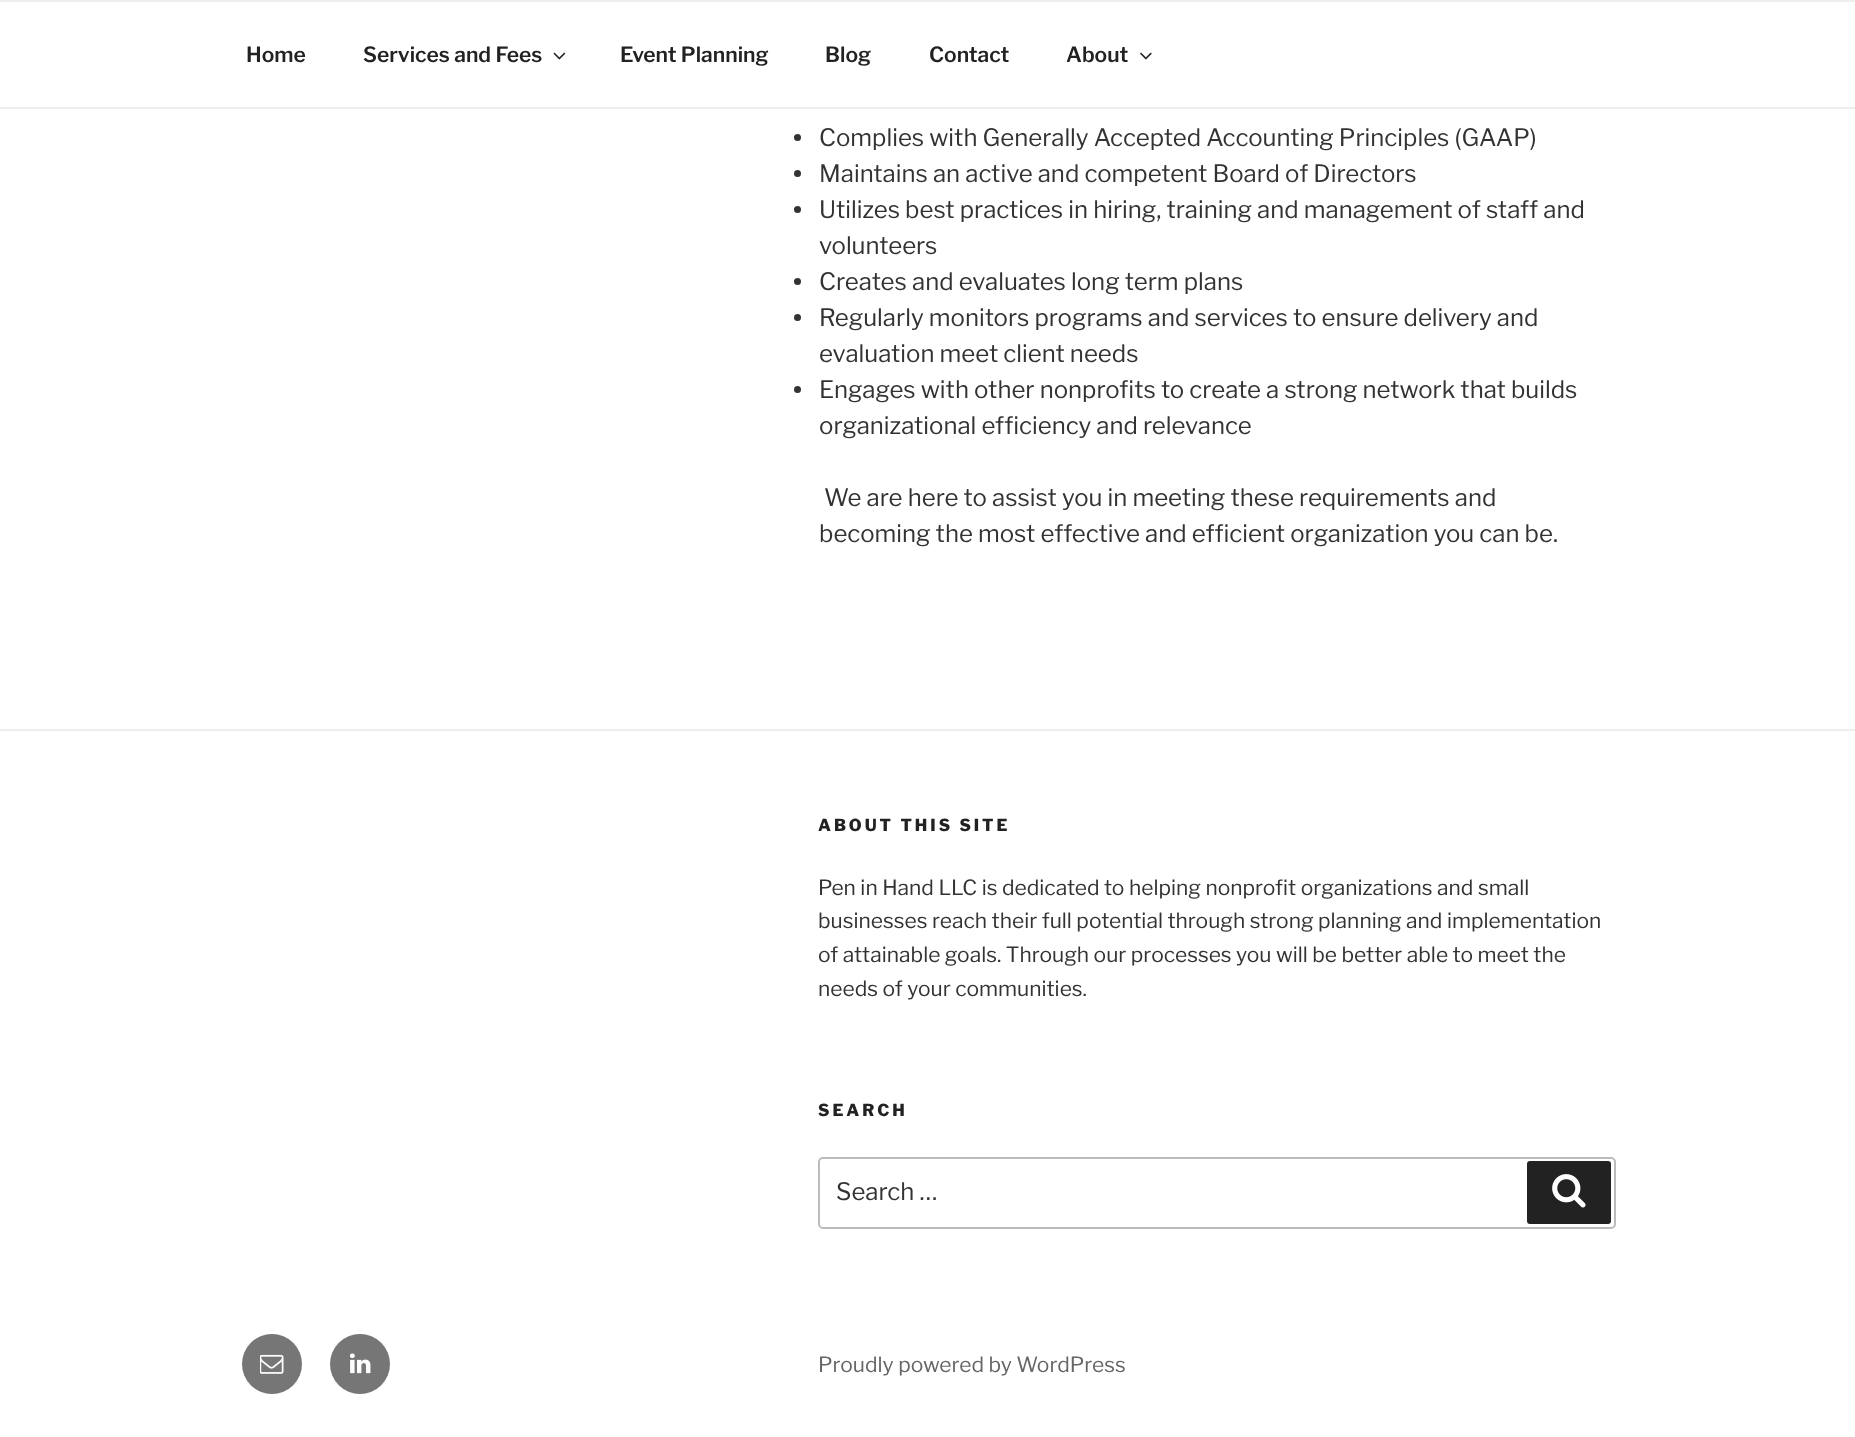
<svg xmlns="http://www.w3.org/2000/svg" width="1855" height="1437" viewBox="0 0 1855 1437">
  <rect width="100%" height="100%" fill="#fff"/>
  <path d="M0 0h1855v2H0z" fill="#eee"/>
  <path d="M0 107h1855v2H0z" fill="#eee"/>
  <image x="553" y="52" width="13" height="8" href="img/1.png"/>
  <image x="1140" y="52" width="12" height="8" href="img/2.png"/>
  <circle cx="797.5" cy="137.5" r="3.5" fill="#333"/>
  <circle cx="797.5" cy="173.5" r="3.5" fill="#333"/>
  <circle cx="797.5" cy="209.5" r="3.5" fill="#333"/>
  <circle cx="797.5" cy="281.5" r="3.5" fill="#333"/>
  <circle cx="797.5" cy="317.5" r="3.5" fill="#333"/>
  <circle cx="797.5" cy="389.5" r="3.5" fill="#333"/>
  <path d="M0 729h1855v2H0z" fill="#eee"/>
  <rect x="819" y="1158" width="796" height="70" rx="4" fill="none" stroke="#bbb" stroke-width="2"/>
  <rect x="1527" y="1161" width="84" height="63" rx="3" fill="#222"/>
  <image x="1552" y="1174" width="34" height="34" href="img/3.png"/>
  <circle cx="272" cy="1364" r="30" fill="#767676"/>
  <image x="260" y="1354" width="24" height="20" href="img/4.png"/>
  <circle cx="360" cy="1364" r="30" fill="#767676"/>
  <image x="349" y="1353" width="22" height="21" href="img/5.png"/>
  <g font-family="'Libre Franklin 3'" font-size="21" font-weight="100" fill="#222">
    <text x="246" y="62">Home</text>
    <text x="363" y="62">Services and Fees</text>
    <text x="620" y="62">Event Planning</text>
    <text x="825" y="62">Blog</text>
    <text x="929" y="62">Contact</text>
    <text x="1066" y="62">About</text>
  </g>
  <g font-family="Libre Franklin" font-size="24" font-weight="100" fill="#333">
    <text x="819" y="146">Complies with Generally Accepted Accounting Principles (GAAP)</text>
    <text x="819" y="182">Maintains an active and competent Board of Directors</text>
    <text x="819" y="218">Utilizes best practices in hiring, training and management of staff and</text>
    <text x="819" y="254">volunteers</text>
    <text x="819" y="290">Creates and evaluates long term plans</text>
    <text x="819" y="326">Regularly monitors programs and services to ensure delivery and</text>
    <text x="819" y="362">evaluation meet client needs</text>
    <text x="819" y="398">Engages with other nonprofits to create a strong network that builds</text>
    <text x="819" y="434">organizational efficiency and relevance</text>
    <text x="824" y="506">We are here to assist you in meeting these requirements and</text>
    <text x="819" y="542">becoming the most effective and efficient organization you can be.</text>
  </g>
  <text x="818" y="831" font-family="'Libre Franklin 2'" font-size="16.5" font-weight="100" letter-spacing="3" fill="#222">ABOUT THIS SITE</text>
  <g font-family="Libre Franklin" font-size="21" font-weight="100" fill="#333">
    <text x="818" y="895">Pen in Hand LLC is dedicated to helping nonprofit organizations and small</text>
    <text x="818" y="928">businesses reach their full potential through strong planning and implementation</text>
    <text x="818" y="962">of attainable goals. Through our processes you will be better able to meet the</text>
    <text x="818" y="996">needs of your communities.</text>
  </g>
  <text x="818" y="1116" font-family="'Libre Franklin 2'" font-size="16.5" font-weight="100" letter-spacing="3" fill="#222">SEARCH</text>
  <text x="836" y="1200" font-family="Libre Franklin" font-size="24" font-weight="100" fill="#333">Search …</text>
  <text x="818" y="1372" font-family="Libre Franklin" font-size="21" font-weight="100" fill="#666">Proudly powered by WordPress</text>
</svg>
